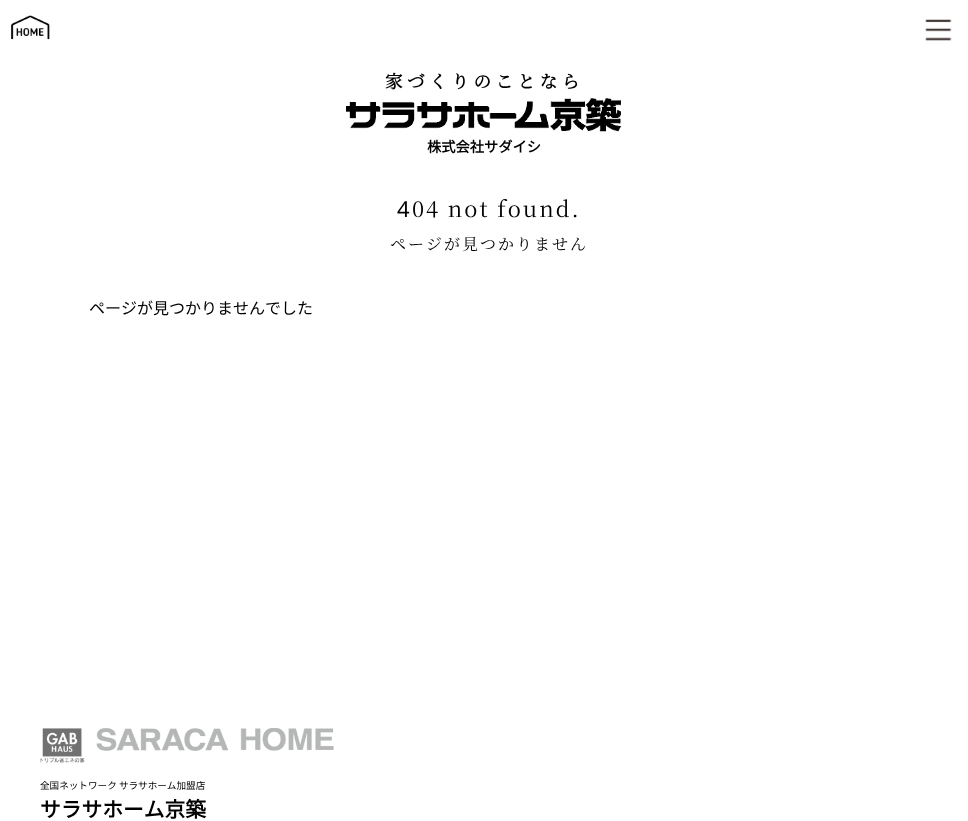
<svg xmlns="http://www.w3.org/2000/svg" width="968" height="821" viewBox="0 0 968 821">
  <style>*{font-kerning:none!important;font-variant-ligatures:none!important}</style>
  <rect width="100%" height="100%" fill="#fff"/>
  <image x="11" y="15" width="39" height="25" href="img/1.png"/>
  <image x="925" y="19" width="27" height="22" href="img/2.png"/>
  <image x="346" y="98" width="276" height="34" href="img/3.png"/>
  <image x="40" y="728" width="45" height="35" href="img/4.png"/>
  <image x="96" y="728" width="238" height="23" href="img/5.png"/>
  <text x="385" y="88" font-family="Noto Serif JP" font-size="17.6" font-weight="bold" letter-spacing="4.5" fill="#000">家づくりのことなら</text>
  <text x="427" y="152" font-family="Noto Sans JP" font-size="14.25" font-weight="bold" fill="#000">株式会社サダイシ</text>
  <text x="397" y="217" font-family="Noto Sans" font-size="22" letter-spacing="2" fill="#000">4</text>
  <text x="412" y="217" font-family="Noto Serif JP" font-size="22" font-weight="200" letter-spacing="2" fill="#000">04 not found.</text>
  <text x="390" y="250" font-family="Noto Serif JP" font-size="16" font-weight="200" letter-spacing="2" fill="#000">ページが見つかりません</text>
  <text x="89" y="314" font-family="Noto Sans JP" font-size="16" font-weight="100" fill="#000">ページが見つかりませんでした</text>
  <text x="40" y="789" font-family="Noto Sans JP" font-size="9.6" font-weight="100" fill="#000">全国ネットワーク サラサホーム加盟店</text>
  <text x="40" y="817" font-family="Noto Sans JP" font-size="20.75" font-weight="bold" fill="#000">サラサホーム京築</text>
</svg>
